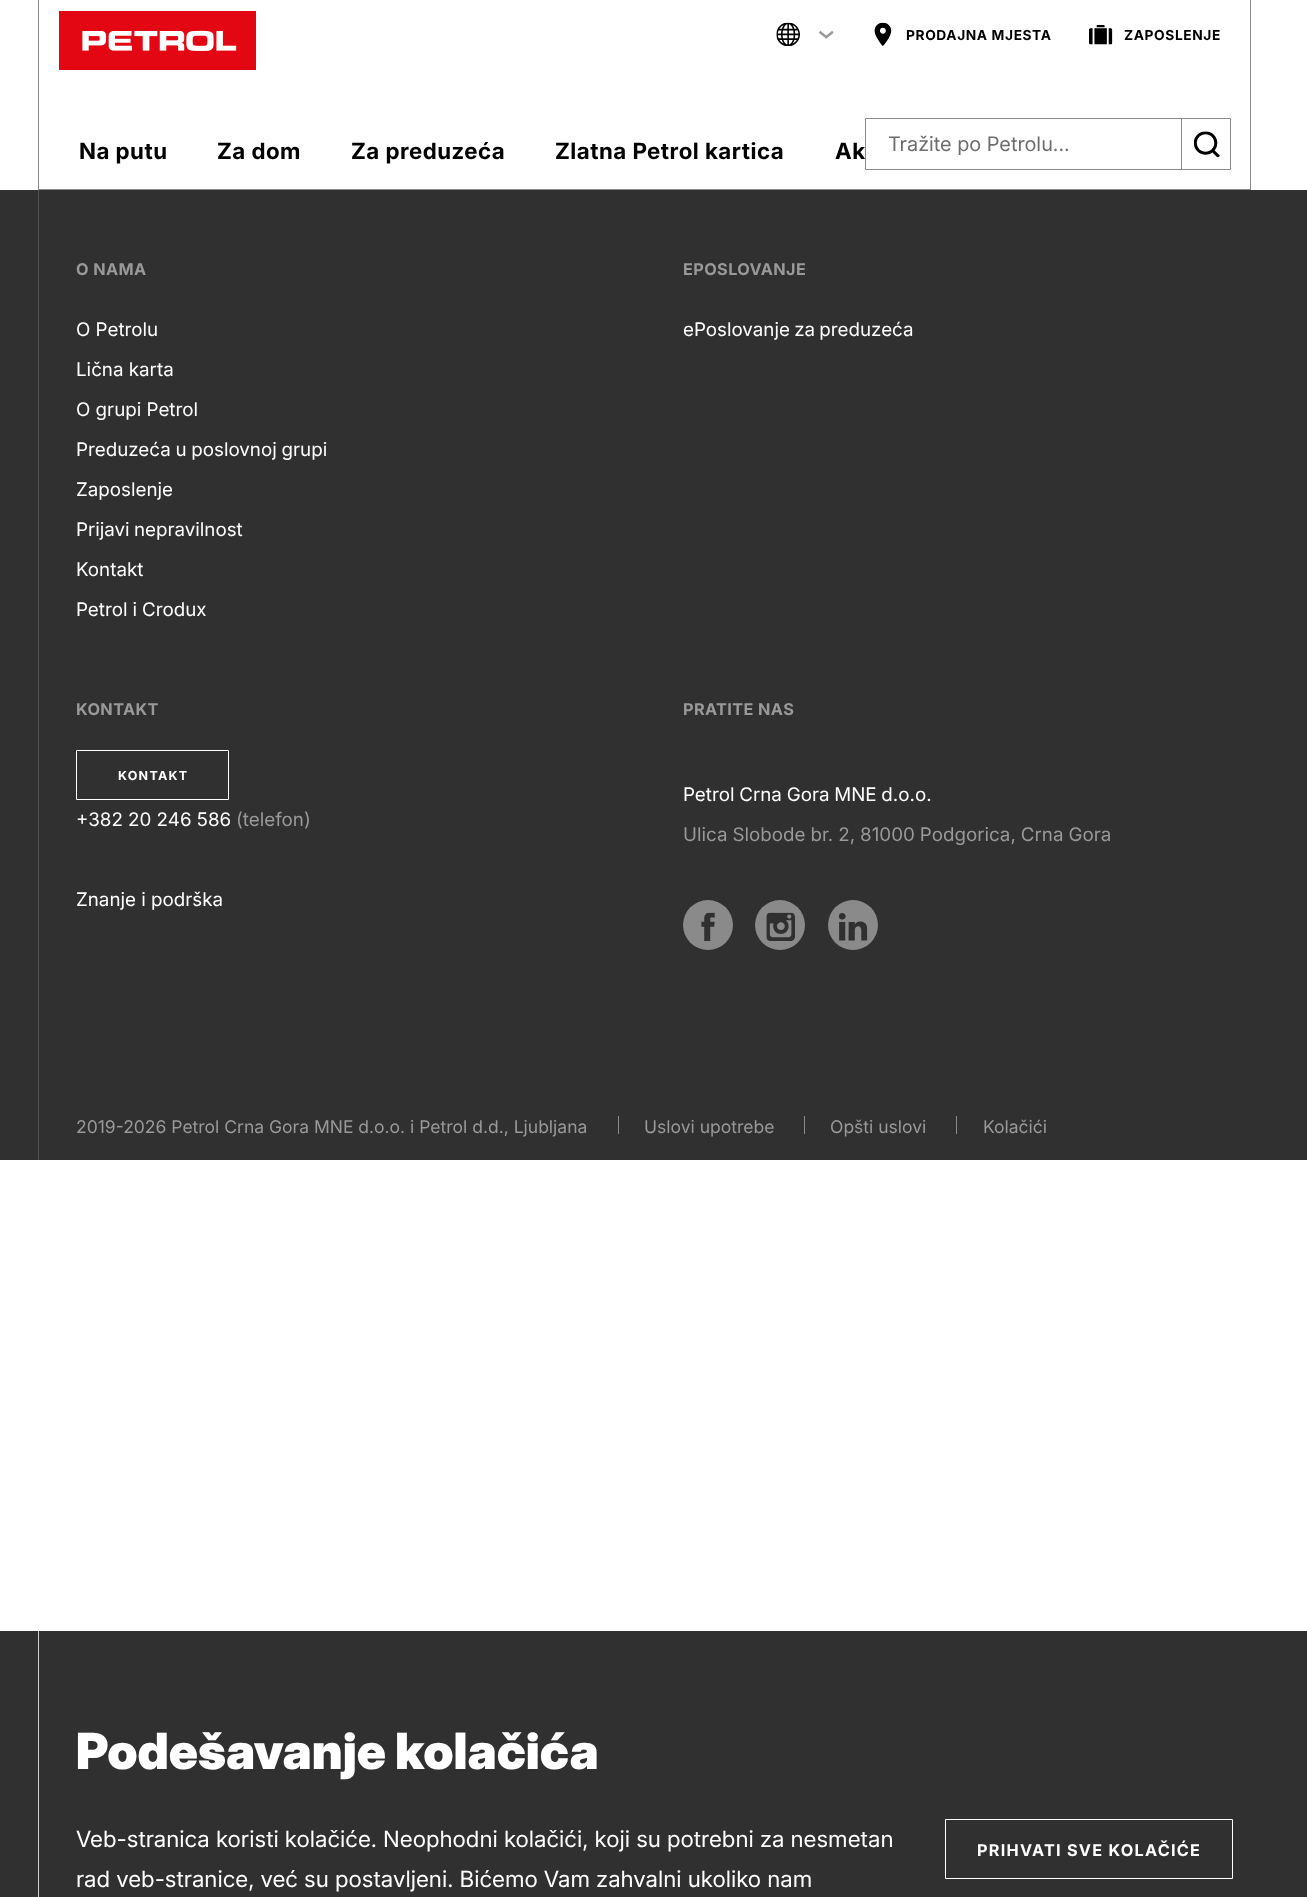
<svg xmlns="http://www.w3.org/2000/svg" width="1307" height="1897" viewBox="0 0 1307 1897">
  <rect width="100%" height="100%" fill="#fff"/>
  <path d="M1250 0h1v190H1250z" fill="#8a8a8a"/>
  <path d="M38 189h1213v1H38z" fill="#8a8a8a"/>
  <path d="M38 0h1v190H38z" fill="#8a8a8a"/>
  <image x="59" y="11" width="197" height="59" href="img/1.png"/>
  <image x="776" y="22" width="24" height="24" href="img/2.png"/>
  <image x="819" y="30" width="15" height="9" href="img/3.png"/>
  <image x="874" y="22" width="18" height="24" href="img/4.png"/>
  <image x="1089" y="25" width="24" height="20" href="img/5.png"/>
  <path d="M865.5 118.5h365v51H865.5z" fill="none" stroke="#8a8a8a"/>
  <path d="M1181 118h1v52H1181z" fill="#8a8a8a"/>
  <image x="1194" y="131" width="26" height="27" href="img/6.png"/>
  <path d="M0 190h1307v970H0z" fill="#303030"/>
  <path d="M38 190h1v970H38z" fill="#505050"/>
  <path d="M76.5 750.5h152v49H76.5z" fill="none" stroke="#fff"/>
  <circle cx="708" cy="925" r="25" fill="#8a8a8a"/>
  <image x="701" y="912" width="14" height="29" href="img/7.png"/>
  <circle cx="780" cy="925" r="25" fill="#8a8a8a"/>
  <image x="766" y="912" width="29" height="29" href="img/8.png"/>
  <circle cx="853" cy="925" r="25" fill="#8a8a8a"/>
  <image x="839" y="913" width="29" height="28" href="img/9.png"/>
  <path d="M618 1116h1v18H618z" fill="#8a8a8a"/>
  <path d="M804 1116h1v18H804z" fill="#8a8a8a"/>
  <path d="M956 1116h1v18H956z" fill="#8a8a8a"/>
  <path d="M0 1631h1307v266H0z" fill="#303030"/>
  <path d="M38 1631h1v266H38z" fill="#d1d1d1"/>
  <path d="M945.5 1819.5h287v59H945.5z" fill="none" stroke="#fff"/>
  <g font-family="Inter" font-size="13.75" font-weight="bold" letter-spacing="0.6" fill="#000">
    <text x="906" y="40">PRODAJNA MJESTA</text>
    <text x="1124" y="40">ZAPOSLENJE</text>
  </g>
  <g font-family="'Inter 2'" font-size="22.5" font-weight="bold" letter-spacing="0.5" fill="#000">
    <text x="79" y="159">Na putu</text>
    <text x="217" y="159">Za dom</text>
    <text x="351" y="159">Za preduzeća</text>
    <text x="555" y="159">Zlatna Petrol kartica</text>
    <text x="835" y="159">Ak</text>
  </g>
  <text x="888" y="151" font-family="'Inter 2'" font-size="20" fill="#6d6d6d">Tražite po Petrolu...</text>
  <text x="76" y="275" font-family="Inter" font-size="16.25" font-weight="bold" letter-spacing="0.4" fill="#999">O NAMA</text>
  <g font-family="Inter" font-size="18.75" fill="#fff">
    <text x="76" y="336">O Petrolu</text>
    <text x="76" y="376">Lična karta</text>
    <text x="76" y="416">O grupi Petrol</text>
    <text x="76" y="456" word-spacing="-0.5">Preduzeća u poslovnoj grupi</text>
    <text x="76" y="496">Zaposlenje</text>
    <text x="76" y="536" word-spacing="-1">Prijavi nepravilnost</text>
    <text x="76" y="576">Kontakt</text>
    <text x="76" y="616" word-spacing="-0.25">Petrol i Crodux</text>
  </g>
  <text x="683" y="275" font-family="Inter" font-size="16.25" font-weight="bold" letter-spacing="0.4" fill="#999">EPOSLOVANJE</text>
  <text x="683" y="336" word-spacing="-1" font-family="Inter" font-size="18.75" fill="#fff">ePoslovanje za preduzeća</text>
  <text x="76" y="715" font-family="Inter" font-size="16.25" font-weight="bold" letter-spacing="0.4" fill="#999">KONTAKT</text>
  <text x="118" y="780" font-family="Inter" font-size="12.5" font-weight="bold" letter-spacing="1.25" fill="#fff">KONTAKT</text>
  <text x="76" y="826" font-family="Inter" font-size="18.75" fill="#fff">+382 20 246 586</text>
  <text x="236" y="826" font-family="Inter" font-size="18.75" fill="#999">(telefon)</text>
  <text x="76" y="906" font-family="Inter" font-size="18.75" fill="#fff">Znanje i podrška</text>
  <text x="683" y="715" font-family="Inter" font-size="16.25" font-weight="bold" letter-spacing="0.4" fill="#999">PRATITE NAS</text>
  <text x="683" y="801" word-spacing="-0.5" font-family="Inter" font-size="18.75" fill="#fff">Petrol Crna Gora MNE d.o.o.</text>
  <text x="683" y="841" word-spacing="-0.25" font-family="Inter" font-size="18.75" fill="#999">Ulica Slobode br. 2, 81000 Podgorica, Crna Gora</text>
  <g font-family="Inter" font-size="17.5" fill="#999">
    <text x="76" y="1133">2019-2026 Petrol Crna Gora MNE d.o.o. i Petrol d.d., Ljubljana</text>
    <text x="644" y="1133">Uslovi upotrebe</text>
    <text x="830" y="1133">Opšti uslovi</text>
    <text x="983" y="1133">Kolačići</text>
  </g>
  <text x="76" y="1769" font-family="Inter" font-size="50" font-weight="900" fill="#fff">Podešavanje kolačića</text>
  <g font-family="'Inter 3'" font-size="22.5" fill="#fff">
    <text x="76" y="1847">Veb-stranica koristi kolačiće. Neophodni kolačići, koji su potrebni za nesmetan</text>
    <text x="76" y="1887">rad veb-stranice, već su postavljeni. Bićemo Vam zahvalni ukoliko nam</text>
  </g>
  <text x="977" y="1856" font-family="Inter" font-size="16.25" font-weight="bold" letter-spacing="1.25" fill="#fff">PRIHVATI SVE KOLAČIĆE</text>
</svg>
